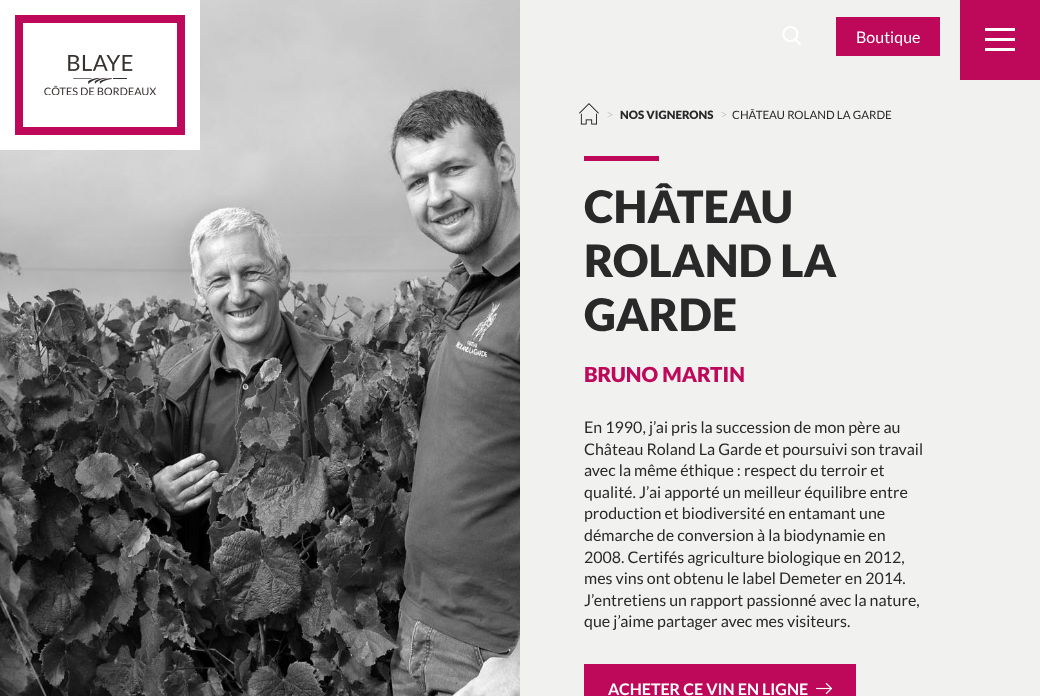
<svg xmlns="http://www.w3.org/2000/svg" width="1040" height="696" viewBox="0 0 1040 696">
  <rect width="100%" height="100%" fill="#f1f1f0"/>
  <image x="0" y="0" width="520" height="696" href="img/3.png"/>
  <path d="M0 0h200v150H0z" fill="#fff"/>
  <path d="M19 19h162v112H19z" fill="none" stroke="#be0859" stroke-width="8"/>
  <image x="44" y="55" width="112" height="40" href="img/1.png"/>
  <image x="782" y="26" width="19" height="19" href="img/2.png"/>
  <path d="M836 17h104v39H836z" fill="#be0859"/>
  <path d="M960 0h80v80H960z" fill="#be0859"/>
  <path d="M985 28h30v3H985z" fill="#fff"/>
  <path d="M985 38h30v3H985z" fill="#fff"/>
  <path d="M985 48h30v3H985z" fill="#fff"/>
  <image x="579" y="103" width="20" height="22" href="img/4.png"/>
  <path d="M584 156h75v5H584z" fill="#be0859"/>
  <path d="M584 664h272v32H584z" fill="#be0859"/>
  <image x="816" y="683" width="16" height="11" href="img/5.png"/>
  <text x="856" y="43" font-family="Lato" font-size="16" fill="#fff">Boutique</text>
  <text x="606" y="119" font-family="Lato" font-size="13" font-weight="300" fill="#b3b3b2">&gt;</text>
  <text x="620" y="119" font-family="Lato" font-size="11.5" font-weight="900" fill="#292929">NOS VIGNERONS</text>
  <text x="720" y="119" font-family="Lato" font-size="13" font-weight="300" fill="#b3b3b2">&gt;</text>
  <text x="732" y="119" font-family="Lato" font-size="11.5" fill="#292929">CHÂTEAU ROLAND LA GARDE</text>
  <g font-family="Lato" font-size="44.75" font-weight="900" fill="#292929">
    <text x="584" y="223">CHÂTEAU</text>
    <text x="584" y="277">ROLAND LA</text>
    <text x="584" y="331">GARDE</text>
  </g>
  <text x="584" y="382" font-family="Lato" font-size="20.75" font-weight="900" fill="#be0859">BRUNO MARTIN</text>
  <g font-family="Lato" font-size="16" fill="#292929">
    <text x="584" y="433">En 1990, j’ai pris la succession de mon père au</text>
    <text x="584" y="455">Château Roland La Garde et poursuivi son travail</text>
    <text x="584" y="476">avec la même éthique : respect du terroir et</text>
    <text x="584" y="498">qualité. J’ai apporté un meilleur équilibre entre</text>
    <text x="584" y="519">production et biodiversité en entamant une</text>
    <text x="584" y="541">démarche de conversion à la biodynamie en</text>
    <text x="584" y="563">2008. Certifés agriculture biologique en 2012,</text>
    <text x="584" y="584">mes vins ont obtenu le label Demeter en 2014.</text>
    <text x="584" y="606">J’entretiens un rapport passionné avec la nature,</text>
    <text x="584" y="627">que j’aime partager avec mes visiteurs.</text>
  </g>
  <text x="608" y="695" font-family="Lato" font-size="16" font-weight="bold" fill="#fff">ACHETER CE VIN EN LIGNE</text>
</svg>
